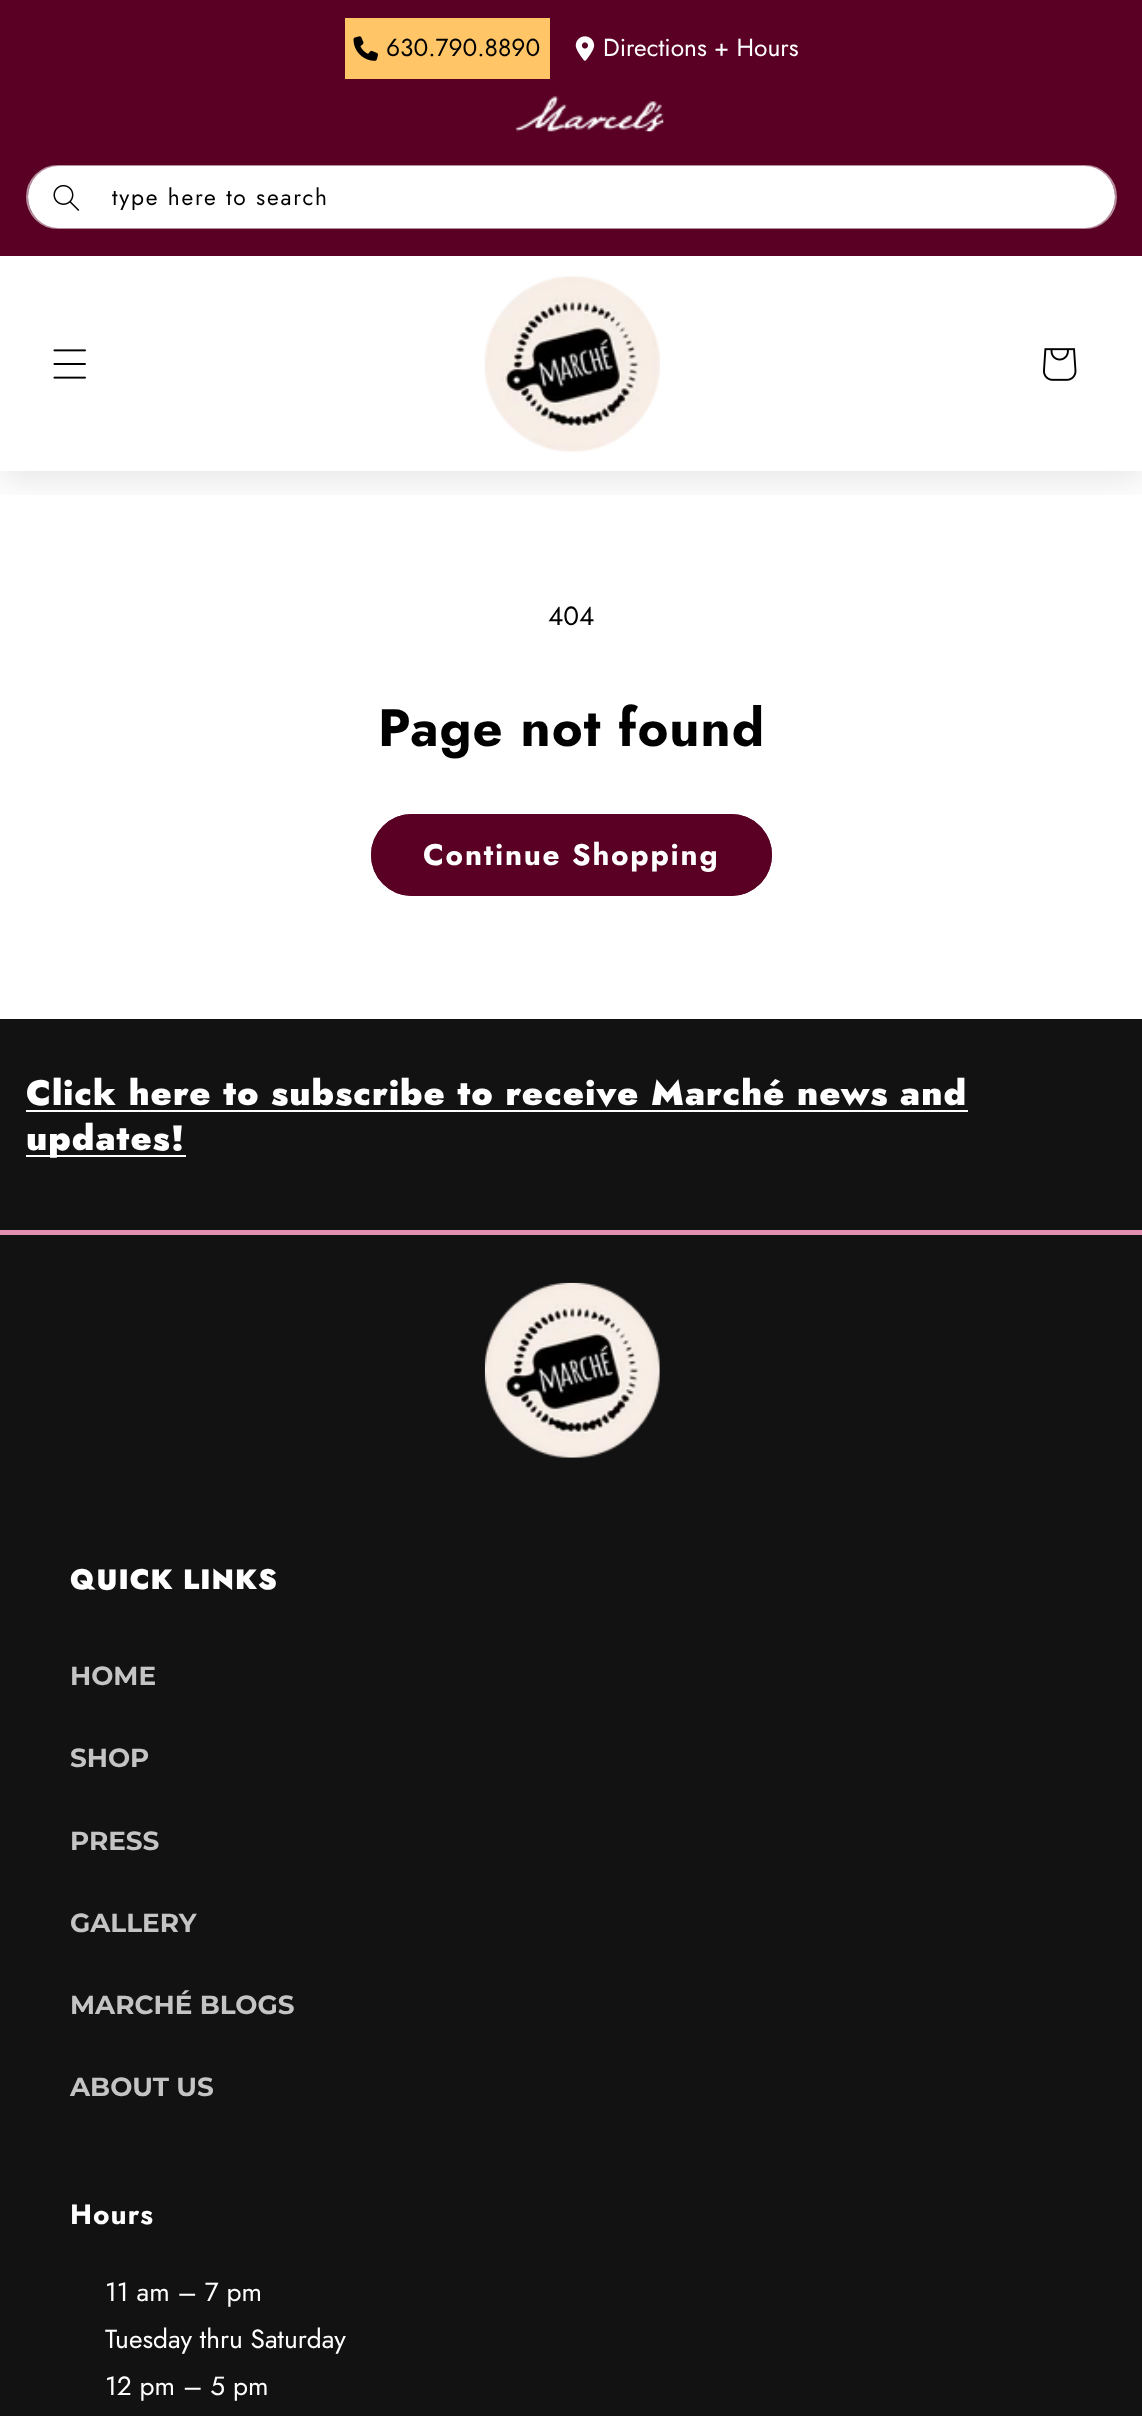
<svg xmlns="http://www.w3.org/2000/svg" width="1142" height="2416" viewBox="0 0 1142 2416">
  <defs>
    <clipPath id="clip1"><path d="M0 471h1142v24H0z"/></clipPath>
  </defs>
  <rect width="100%" height="100%" fill="#fff"/>
  <g clip-path="url(#clip1)">
    <path d="M0 264h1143v216H0z" fill="#0000001a" filter="blur(17.5px)"/>
  </g>
  <path d="M0 0h1142v256H0z" fill="#590024"/>
  <path d="M345 18h205v61H345z" fill="#ffc567"/>
  <image x="353" y="36" width="25" height="25" href="img/1.png"/>
  <image x="575" y="36" width="20" height="25" href="img/2.png"/>
  <image x="515" y="95" width="149" height="37" href="img/3.png"/>
  <rect x="28" y="166" width="1087" height="62" rx="31" fill="#fff"/>
  <image x="53" y="185" width="27" height="26" href="img/4.png"/>
  <rect x="27" y="166" width="1089" height="62" rx="31" fill="none" stroke="#ffffff8c" stroke-width="2"/>
  <image x="53" y="349" width="33" height="30" href="img/5.png"/>
  <image x="484" y="276" width="176" height="176" href="img/6.png"/>
  <image x="1043" y="348" width="34" height="33" href="img/7.png"/>
  <rect x="371" y="814" width="401" height="82" rx="41" fill="#590024"/>
  <rect x="372" y="815" width="399" height="80" rx="40" fill="none" stroke="#590024" stroke-width="2"/>
  <path d="M0 1019h1142v211H0z" fill="#121212"/>
  <path d="M26 1110h942v2H26z" fill="#fff"/>
  <path d="M26 1155h160v2H26z" fill="#fff"/>
  <path d="M0 1235h1142v1181H0z" fill="#121212"/>
  <path d="M0 1230h1142v5H0z" fill="#e38fb1"/>
  <image x="484" y="1282" width="176" height="176" href="img/8.png"/>
  <text x="386" y="56" font-family="Jost" font-size="24.5" fill="#000">630.790.8890</text>
  <text x="603" y="56" font-family="Jost" font-size="24.5" fill="#fff">Directions + Hours</text>
  <text x="112" y="205" font-family="Jost" font-size="22.75" letter-spacing="1.75" fill="#000">type here to search</text>
  <text x="548" y="625" font-family="Jost" font-size="26.25" fill="#000">404</text>
  <text x="378" y="746" font-family="Jost" font-size="52.5" font-weight="bold" letter-spacing="1.05" fill="#000">Page not found</text>
  <text x="423" y="865" font-family="Jost" font-size="29.75" font-weight="bold" letter-spacing="1.75" fill="#fff">Continue Shopping</text>
  <g font-family="Jost" font-size="35" font-weight="900" letter-spacing="1.05" fill="#fff">
    <text x="26" y="1105">Click here to subscribe to receive Marché news and</text>
    <text x="26" y="1150">updates!</text>
  </g>
  <text x="70" y="1589" font-family="Jost" font-size="28" font-weight="900" letter-spacing="1.05" fill="#fff">QUICK LINKS</text>
  <g font-family="Montserrat" font-size="26.25" font-weight="bold" fill="#c4c4c4">
    <text x="70" y="1685">HOME</text>
    <text x="70" y="1767">SHOP</text>
    <text x="70" y="1850">PRESS</text>
    <text x="70" y="1932">GALLERY</text>
    <text x="70" y="2014">MARCHÉ BLOGS</text>
    <text x="70" y="2096">ABOUT US</text>
  </g>
  <text x="70" y="2224" font-family="Jost" font-size="28" font-weight="bold" letter-spacing="1.05" fill="#fff">Hours</text>
  <g font-family="Jost" font-size="26.25" fill="#fff">
    <text x="105" y="2301">11 am – 7 pm</text>
    <text x="105" y="2348">Tuesday thru Saturday</text>
    <text x="105" y="2395">12 pm – 5 pm</text>
  </g>
</svg>
